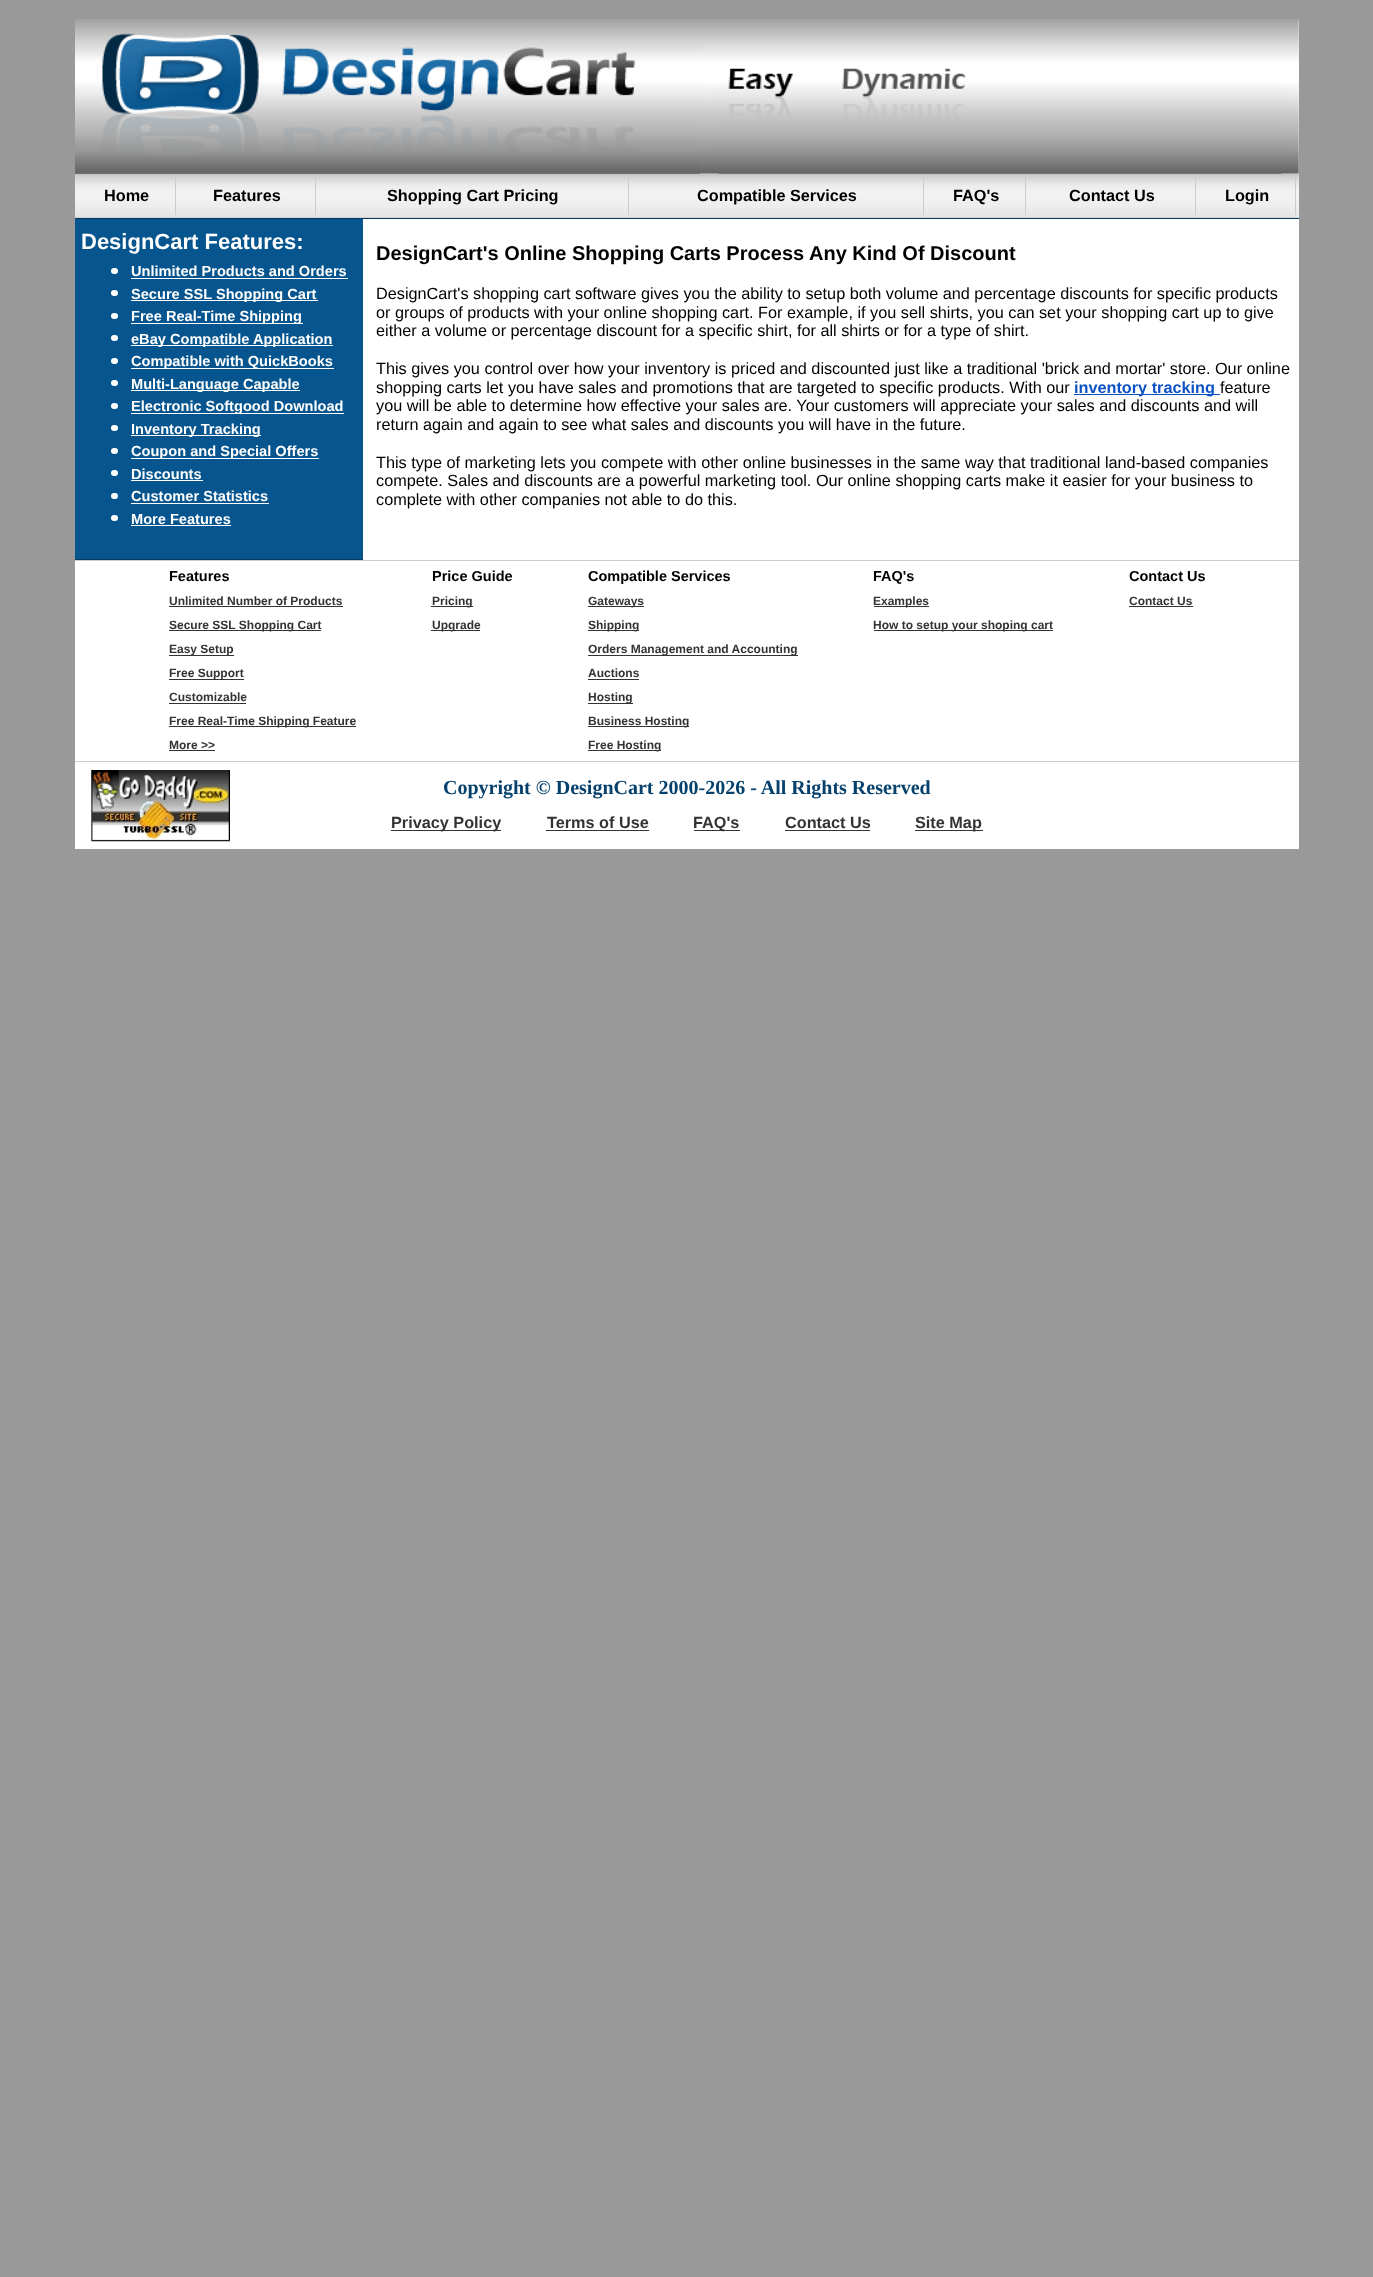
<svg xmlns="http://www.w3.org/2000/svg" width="1373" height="2277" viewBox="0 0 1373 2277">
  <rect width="100%" height="100%" fill="#999"/>
  <path d="M75 19h1224v830H75z" fill="#fff"/>
  <image x="75" y="19" width="1224" height="155" href="img/1.png"/>
  <image x="75" y="173" width="1224" height="45" href="img/4.png"/>
  <image x="75" y="33" width="625" height="141" href="img/2.png"/>
  <image x="718" y="68" width="564" height="106" href="img/3.png"/>
  <path d="M75 218h1224v1H75z" fill="#04385d"/>
  <path d="M175 176h1v39H175z" fill="#ccc"/>
  <path d="M315 176h1v39H315z" fill="#ccc"/>
  <path d="M628 176h1v39H628z" fill="#ccc"/>
  <path d="M923 176h1v39H923z" fill="#ccc"/>
  <path d="M1025 176h1v39H1025z" fill="#ccc"/>
  <path d="M1195 176h1v39H1195z" fill="#ccc"/>
  <path d="M1295 176h1v39H1295z" fill="#ccc"/>
  <path d="M75 219h288v340H75z" fill="#06558e"/>
  <path d="M75 559h288v1H75z" fill="#04385d"/>
  <rect x="111" y="268" width="7" height="6" rx="3" fill="#fff"/>
  <path d="M131 278h217v1H131z" fill="#fff"/>
  <rect x="111" y="290" width="7" height="6" rx="3" fill="#fff"/>
  <path d="M131 300h187v1H131z" fill="#fff"/>
  <rect x="111" y="313" width="7" height="6" rx="3" fill="#fff"/>
  <path d="M131 323h172v1H131z" fill="#fff"/>
  <rect x="111" y="335" width="7" height="6" rx="3" fill="#fff"/>
  <path d="M131 345h202v1H131z" fill="#fff"/>
  <rect x="111" y="358" width="7" height="6" rx="3" fill="#fff"/>
  <path d="M131 368h203v1H131z" fill="#fff"/>
  <rect x="111" y="380" width="7" height="6" rx="3" fill="#fff"/>
  <path d="M131 390h169v1H131z" fill="#fff"/>
  <rect x="111" y="403" width="7" height="6" rx="3" fill="#fff"/>
  <path d="M131 413h213v1H131z" fill="#fff"/>
  <rect x="111" y="425" width="7" height="6" rx="3" fill="#fff"/>
  <path d="M131 435h130v1H131z" fill="#fff"/>
  <rect x="111" y="448" width="7" height="6" rx="3" fill="#fff"/>
  <path d="M131 458h188v1H131z" fill="#fff"/>
  <rect x="111" y="470" width="7" height="6" rx="3" fill="#fff"/>
  <path d="M131 480h72v1H131z" fill="#fff"/>
  <rect x="111" y="493" width="7" height="6" rx="3" fill="#fff"/>
  <path d="M131 503h138v1H131z" fill="#fff"/>
  <rect x="111" y="515" width="7" height="6" rx="3" fill="#fff"/>
  <path d="M131 525h100v1H131z" fill="#fff"/>
  <path d="M1074 394h146v1H1074z" fill="#0d52c5"/>
  <path d="M75 560h1224v1H75z" fill="#ccc"/>
  <path d="M169 606h174v1H169z" fill="#333"/>
  <path d="M169 630h152v1H169z" fill="#333"/>
  <path d="M169 655h65v1H169z" fill="#333"/>
  <path d="M169 679h75v1H169z" fill="#333"/>
  <path d="M169 703h77v1H169z" fill="#333"/>
  <path d="M169 726h187v1H169z" fill="#333"/>
  <path d="M169 750h46v1H169z" fill="#333"/>
  <path d="M431 606h42v1H431z" fill="#333"/>
  <path d="M431 630h49v1H431z" fill="#333"/>
  <path d="M588 606h56v1H588z" fill="#333"/>
  <path d="M588 630h51v1H588z" fill="#333"/>
  <path d="M588 655h210v1H588z" fill="#333"/>
  <path d="M588 679h51v1H588z" fill="#333"/>
  <path d="M588 703h45v1H588z" fill="#333"/>
  <path d="M588 726h101v1H588z" fill="#333"/>
  <path d="M588 750h73v1H588z" fill="#333"/>
  <path d="M874 606h55v1H874z" fill="#333"/>
  <path d="M874 630h179v1H874z" fill="#333"/>
  <path d="M1129 606h64v1H1129z" fill="#333"/>
  <path d="M75 761h1224v1H75z" fill="#ccc"/>
  <image x="91" y="770" width="139" height="72" href="img/5.png"/>
  <path d="M391 830h110v1H391z" fill="#333"/>
  <path d="M546 830h103v1H546z" fill="#333"/>
  <path d="M694 830h46v1H694z" fill="#333"/>
  <path d="M785 830h85v1H785z" fill="#333"/>
  <path d="M915 830h68v1H915z" fill="#333"/>
  <g font-family="Liberation Sans" font-size="16.25" font-weight="bold" fill="#000">
    <text x="104" y="201">Home</text>
    <text x="213" y="201">Features</text>
    <text x="387" y="201">Shopping Cart Pricing</text>
    <text x="697" y="201">Compatible Services</text>
    <text x="953" y="201">FAQ's</text>
    <text x="1069" y="201">Contact Us</text>
    <text x="1225" y="201">Login</text>
  </g>
  <text x="81" y="249" font-family="Liberation Sans" font-size="22" font-weight="bold" fill="#fff">DesignCart Features:</text>
  <g font-family="Liberation Sans" font-size="14.6" font-weight="bold" fill="#fff">
    <text x="131" y="276">Unlimited Products and Orders</text>
    <text x="131" y="299">Secure SSL Shopping Cart</text>
    <text x="131" y="321">Free Real-Time Shipping</text>
    <text x="131" y="344">eBay Compatible Application</text>
    <text x="131" y="366">Compatible with QuickBooks</text>
    <text x="131" y="389">Multi-Language Capable</text>
    <text x="131" y="411">Electronic Softgood Download</text>
    <text x="131" y="434">Inventory Tracking</text>
    <text x="131" y="456">Coupon and Special Offers</text>
    <text x="131" y="479">Discounts</text>
    <text x="131" y="501">Customer Statistics</text>
    <text x="131" y="524">More Features</text>
  </g>
  <text x="376" y="260" font-family="Liberation Sans" font-size="20" font-weight="bold" fill="#000">DesignCart's Online Shopping Carts Process Any Kind Of Discount</text>
  <g font-family="Liberation Sans" font-size="16.25" fill="#000">
    <text x="376" y="299">DesignCart's shopping cart software gives you the ability to setup both volume and percentage discounts for specific products</text>
    <text x="376" y="318">or groups of products with your online shopping cart. For example, if you sell shirts, you can set your shopping cart up to give</text>
    <text x="376" y="336">either a volume or percentage discount for a specific shirt, for all shirts or for a type of shirt.</text>
    <text x="376" y="374">This gives you control over how your inventory is priced and discounted just like a traditional 'brick and mortar' store. Our online</text>
    <text x="376" y="393">shopping carts let you have sales and promotions that are targeted to specific products. With our</text>
  </g>
  <text x="1074" y="393" font-family="Liberation Sans" font-size="16.25" font-weight="bold" fill="#0d52c5">inventory tracking</text>
  <g font-family="Liberation Sans" font-size="16.25" fill="#000">
    <text x="1220" y="393">feature</text>
    <text x="376" y="411">you will be able to determine how effective your sales are. Your customers will appreciate your sales and discounts and will</text>
    <text x="376" y="430">return again and again to see what sales and discounts you will have in the future.</text>
    <text x="376" y="468">This type of marketing lets you compete with other online businesses in the same way that traditional land-based companies</text>
    <text x="376" y="486">compete. Sales and discounts are a powerful marketing tool. Our online shopping carts make it easier for your business to</text>
    <text x="376" y="505">complete with other companies not able to do this.</text>
  </g>
  <text x="169" y="581" font-family="Liberation Sans" font-size="14.5" font-weight="bold" fill="#000">Features</text>
  <g font-family="Liberation Sans" font-size="12" font-weight="bold" fill="#333">
    <text x="169" y="605">Unlimited Number of Products</text>
    <text x="169" y="629">Secure SSL Shopping Cart</text>
    <text x="169" y="653">Easy Setup</text>
    <text x="169" y="677">Free Support</text>
    <text x="169" y="701">Customizable</text>
    <text x="169" y="725">Free Real-Time Shipping Feature</text>
    <text x="169" y="749">More &gt;&gt;</text>
  </g>
  <text x="432" y="581" font-family="Liberation Sans" font-size="14.5" font-weight="bold" fill="#000">Price Guide</text>
  <g font-family="Liberation Sans" font-size="12" font-weight="bold" fill="#333">
    <text x="432" y="605">Pricing</text>
    <text x="432" y="629">Upgrade</text>
  </g>
  <text x="588" y="581" font-family="Liberation Sans" font-size="14.5" font-weight="bold" fill="#000">Compatible Services</text>
  <g font-family="Liberation Sans" font-size="12" font-weight="bold" fill="#333">
    <text x="588" y="605">Gateways</text>
    <text x="588" y="629">Shipping</text>
    <text x="588" y="653">Orders Management and Accounting</text>
    <text x="588" y="677">Auctions</text>
    <text x="588" y="701">Hosting</text>
    <text x="588" y="725">Business Hosting</text>
    <text x="588" y="749">Free Hosting</text>
  </g>
  <text x="873" y="581" font-family="Liberation Sans" font-size="14.5" font-weight="bold" fill="#000">FAQ's</text>
  <g font-family="Liberation Sans" font-size="12" font-weight="bold" fill="#333">
    <text x="873" y="605">Examples</text>
    <text x="873" y="629">How to setup your shoping cart</text>
  </g>
  <text x="1129" y="581" font-family="Liberation Sans" font-size="14.5" font-weight="bold" fill="#000">Contact Us</text>
  <text x="1129" y="605" font-family="Liberation Sans" font-size="12" font-weight="bold" fill="#333">Contact Us</text>
  <text x="443" y="794" font-family="Liberation Serif" font-size="20" font-weight="bold" fill="#05416c">Copyright © DesignCart 2000-2026 - All Rights Reserved</text>
  <g font-family="Liberation Sans" font-size="16.25" font-weight="bold" fill="#333">
    <text x="391" y="828">Privacy Policy</text>
    <text x="547" y="828">Terms of Use</text>
    <text x="693" y="828">FAQ's</text>
    <text x="785" y="828">Contact Us</text>
    <text x="915" y="828">Site Map</text>
  </g>
</svg>
